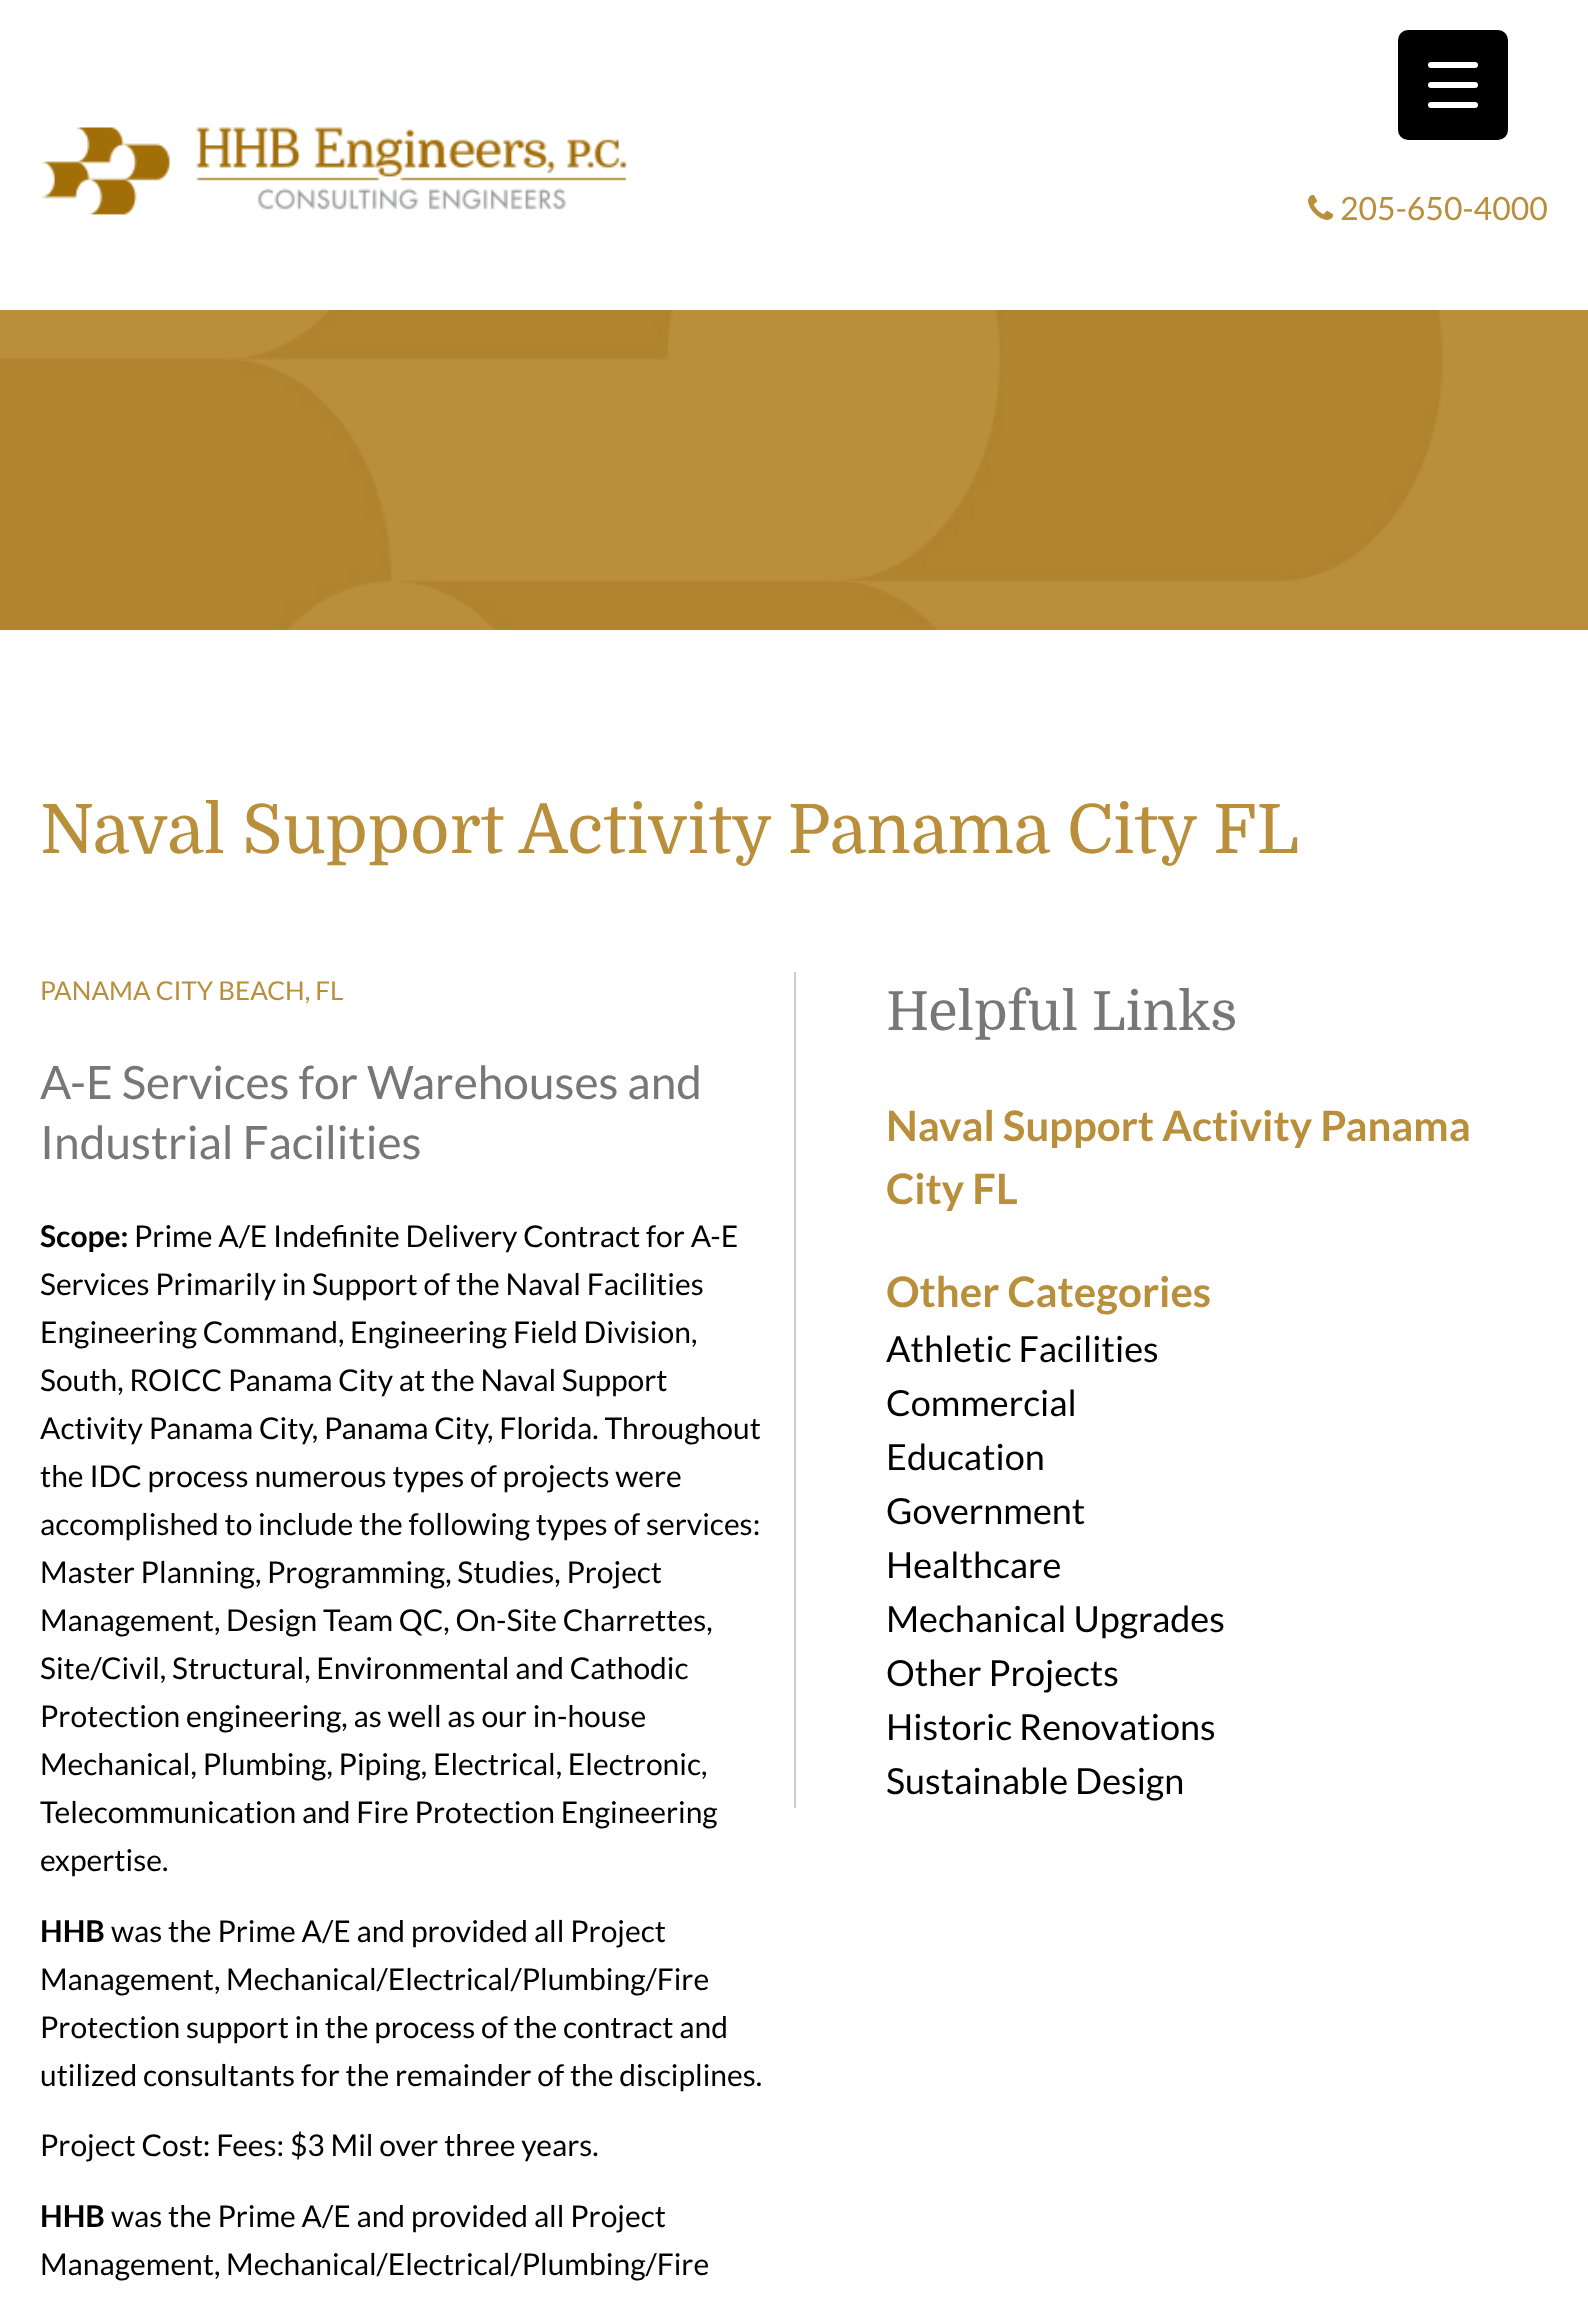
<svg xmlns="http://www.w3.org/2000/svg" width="1588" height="2299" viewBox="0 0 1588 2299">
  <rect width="100%" height="100%" fill="#fff"/>
  <rect x="1398" y="30" width="110" height="110" rx="10" fill="#000"/>
  <rect x="1428" y="82" width="50" height="6" rx="3" fill="#fff"/>
  <rect x="1428" y="62" width="50" height="6" rx="3" fill="#fff"/>
  <rect x="1428" y="102" width="50" height="6" rx="3" fill="#fff"/>
  <image x="41" y="127" width="586" height="88" href="img/1.png"/>
  <image x="1308" y="194" width="26" height="26" href="img/2.png"/>
  <path d="M1443 310h145v320H1443z" fill="#ba8f3c"/>
  <image x="0" y="310" width="1443" height="320" href="img/3.png"/>
  <path d="M794 972h2v836H794z" fill="#ccc"/>
  <text x="1340" y="220" font-family="Lato" font-size="32" fill="#ba8f3c">205-650-4000</text>
  <text x="40" y="853" font-family="Domine" font-size="68" fill="#ba8f3c">Naval Support Activity Panama City FL</text>
  <text x="40" y="1000" font-family="Lato" font-size="26" fill="#ba8f3c">PANAMA CITY BEACH, FL</text>
  <g font-family="Lato" font-size="46" fill="#777">
    <text x="40" y="1099">A-E Services for Warehouses and</text>
    <text x="40" y="1159">Industrial Facilities</text>
  </g>
  <text x="40" y="1247" font-family="Lato" font-size="30" font-weight="bold" fill="#000">Scope:</text>
  <g font-family="Lato" font-size="30" fill="#000">
    <text x="134" y="1247">Prime A/E Indefinite Delivery Contract for A-E</text>
    <text x="40" y="1295">Services Primarily in Support of the Naval Facilities</text>
    <text x="40" y="1343">Engineering Command, Engineering Field Division,</text>
    <text x="40" y="1391">South, ROICC Panama City at the Naval Support</text>
    <text x="40" y="1439">Activity Panama City, Panama City, Florida. Throughout</text>
    <text x="40" y="1487">the IDC process numerous types of projects were</text>
    <text x="40" y="1535">accomplished to include the following types of services:</text>
    <text x="40" y="1583">Master Planning, Programming, Studies, Project</text>
    <text x="40" y="1631">Management, Design Team QC, On-Site Charrettes,</text>
    <text x="40" y="1679">Site/Civil, Structural, Environmental and Cathodic</text>
    <text x="40" y="1727">Protection engineering, as well as our in-house</text>
    <text x="40" y="1775">Mechanical, Plumbing, Piping, Electrical, Electronic,</text>
    <text x="40" y="1823">Telecommunication and Fire Protection Engineering</text>
    <text x="40" y="1871">expertise.</text>
  </g>
  <text x="40" y="1942" font-family="Lato" font-size="30" font-weight="bold" fill="#000">HHB</text>
  <g font-family="Lato" font-size="30" fill="#000">
    <text x="111" y="1942">was the Prime A/E and provided all Project</text>
    <text x="40" y="1990">Management, Mechanical/Electrical/Plumbing/Fire</text>
    <text x="40" y="2038">Protection support in the process of the contract and</text>
    <text x="40" y="2086">utilized consultants for the remainder of the disciplines.</text>
    <text x="40" y="2156">Project Cost: Fees: $3 Mil over three years.</text>
  </g>
  <text x="40" y="2227" font-family="Lato" font-size="30" font-weight="bold" fill="#000">HHB</text>
  <g font-family="Lato" font-size="30" fill="#000">
    <text x="111" y="2227">was the Prime A/E and provided all Project</text>
    <text x="40" y="2275">Management, Mechanical/Electrical/Plumbing/Fire</text>
  </g>
  <text x="886" y="1030" font-family="Domine" font-size="54" fill="#777">Helpful Links</text>
  <g font-family="Lato" font-size="42" font-weight="bold" fill="#ba8f3c">
    <text x="886" y="1141">Naval Support Activity Panama</text>
    <text x="886" y="1204">City FL</text>
    <text x="886" y="1307">Other Categories</text>
  </g>
  <g font-family="Lato" font-size="36" fill="#000">
    <text x="886" y="1362">Athletic Facilities</text>
    <text x="886" y="1416">Commercial</text>
    <text x="886" y="1470">Education</text>
    <text x="886" y="1524">Government</text>
    <text x="886" y="1578">Healthcare</text>
    <text x="886" y="1632">Mechanical Upgrades</text>
    <text x="886" y="1686">Other Projects</text>
    <text x="886" y="1740">Historic Renovations</text>
    <text x="886" y="1794">Sustainable Design</text>
  </g>
</svg>
